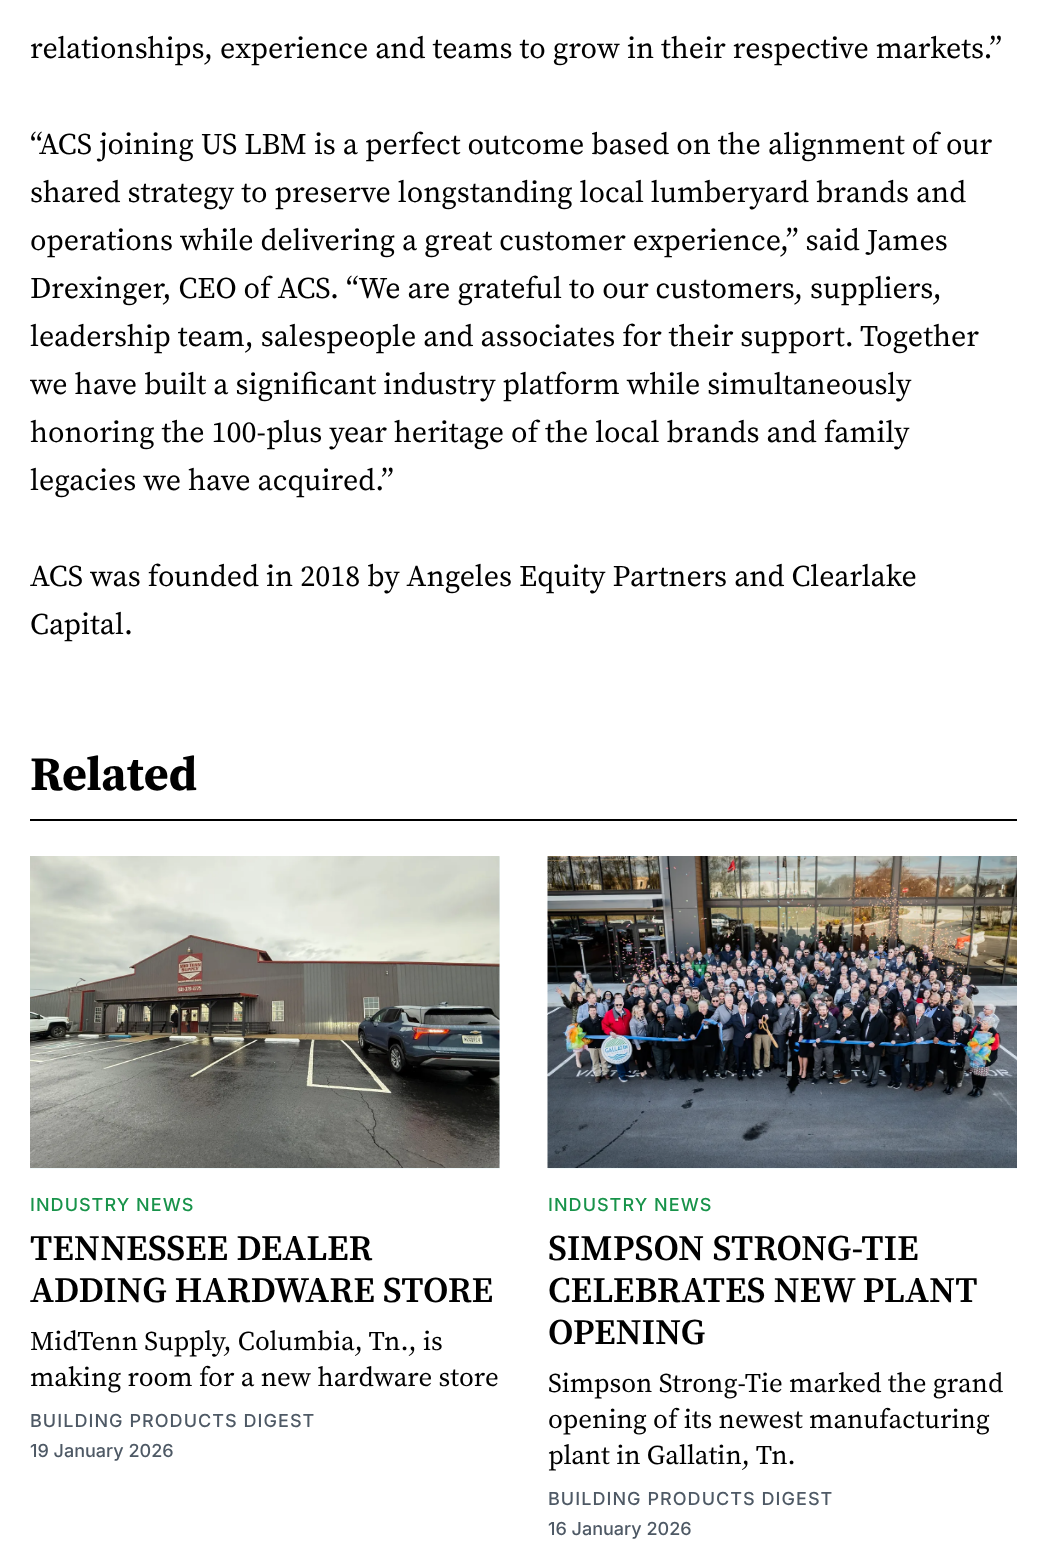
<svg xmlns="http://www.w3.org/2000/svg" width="1047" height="1542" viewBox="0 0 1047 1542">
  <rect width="100%" height="100%" fill="#fff"/>
  <path d="M30 819h987v2H30z" fill="#000"/>
  <path d="M30 857h470v312H30z" fill="#eff8fa"/>
  <image x="30" y="856" width="470" height="312" href="img/1.png"/>
  <path d="M548 1168h469v1H548z" fill="#eff8fa"/>
  <image x="547" y="856" width="470" height="312" href="img/2.png"/>
  <g font-family="Source Serif Pro" font-size="30" fill="#000">
    <text x="30" y="58">relationships, experience and teams to grow in their respective markets.”</text>
    <text x="30" y="154">“ACS joining US LBM is a perfect outcome based on the alignment of our</text>
    <text x="30" y="202">shared strategy to preserve longstanding local lumberyard brands and</text>
    <text x="30" y="250">operations while delivering a great customer experience,” said James</text>
    <text x="30" y="298">Drexinger, CEO of ACS. “We are grateful to our customers, suppliers,</text>
    <text x="30" y="346">leadership team, salespeople and associates for their support. Together</text>
    <text x="30" y="394">we have built a significant industry platform while simultaneously</text>
    <text x="30" y="442">honoring the 100-plus year heritage of the local brands and family</text>
    <text x="30" y="490">legacies we have acquired.”</text>
    <text x="30" y="586">ACS was founded in 2018 by Angeles Equity Partners and Clearlake</text>
    <text x="30" y="634">Capital.</text>
  </g>
  <text x="30" y="790" font-family="Source Serif Pro" font-size="48" font-weight="bold" fill="#000">Related</text>
  <text x="30" y="1211" font-family="Inter" font-size="18" font-weight="500" letter-spacing="1.05" fill="#18934a">INDUSTRY NEWS</text>
  <g font-family="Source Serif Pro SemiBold" font-size="36" font-weight="600" fill="#000">
    <text x="30" y="1260">TENNESSEE DEALER</text>
    <text x="30" y="1302">ADDING HARDWARE STORE</text>
  </g>
  <g font-family="Source Serif Pro" font-size="27" fill="#000">
    <text x="30" y="1350">MidTenn Supply, Columbia, Tn., is</text>
    <text x="30" y="1386">making room for a new hardware store</text>
  </g>
  <text x="30" y="1427" font-family="Inter" font-size="18" font-weight="500" letter-spacing="1.05" fill="#4e5965">BUILDING PRODUCTS DIGEST</text>
  <text x="30" y="1457" font-family="Inter" font-size="18" font-weight="500" fill="#4e5965">19 January 2026</text>
  <text x="548" y="1211" font-family="Inter" font-size="18" font-weight="500" letter-spacing="1.05" fill="#18934a">INDUSTRY NEWS</text>
  <g font-family="Source Serif Pro SemiBold" font-size="36" font-weight="600" fill="#000">
    <text x="548" y="1260">SIMPSON STRONG-TIE</text>
    <text x="548" y="1302">CELEBRATES NEW PLANT</text>
    <text x="548" y="1344">OPENING</text>
  </g>
  <g font-family="Source Serif Pro" font-size="27" fill="#000">
    <text x="548" y="1392">Simpson Strong-Tie marked the grand</text>
    <text x="548" y="1428">opening of its newest manufacturing</text>
    <text x="548" y="1464">plant in Gallatin, Tn.</text>
  </g>
  <text x="548" y="1505" font-family="Inter" font-size="18" font-weight="500" letter-spacing="1.05" fill="#4e5965">BUILDING PRODUCTS DIGEST</text>
  <text x="548" y="1535" font-family="Inter" font-size="18" font-weight="500" fill="#4e5965">16 January 2026</text>
</svg>
